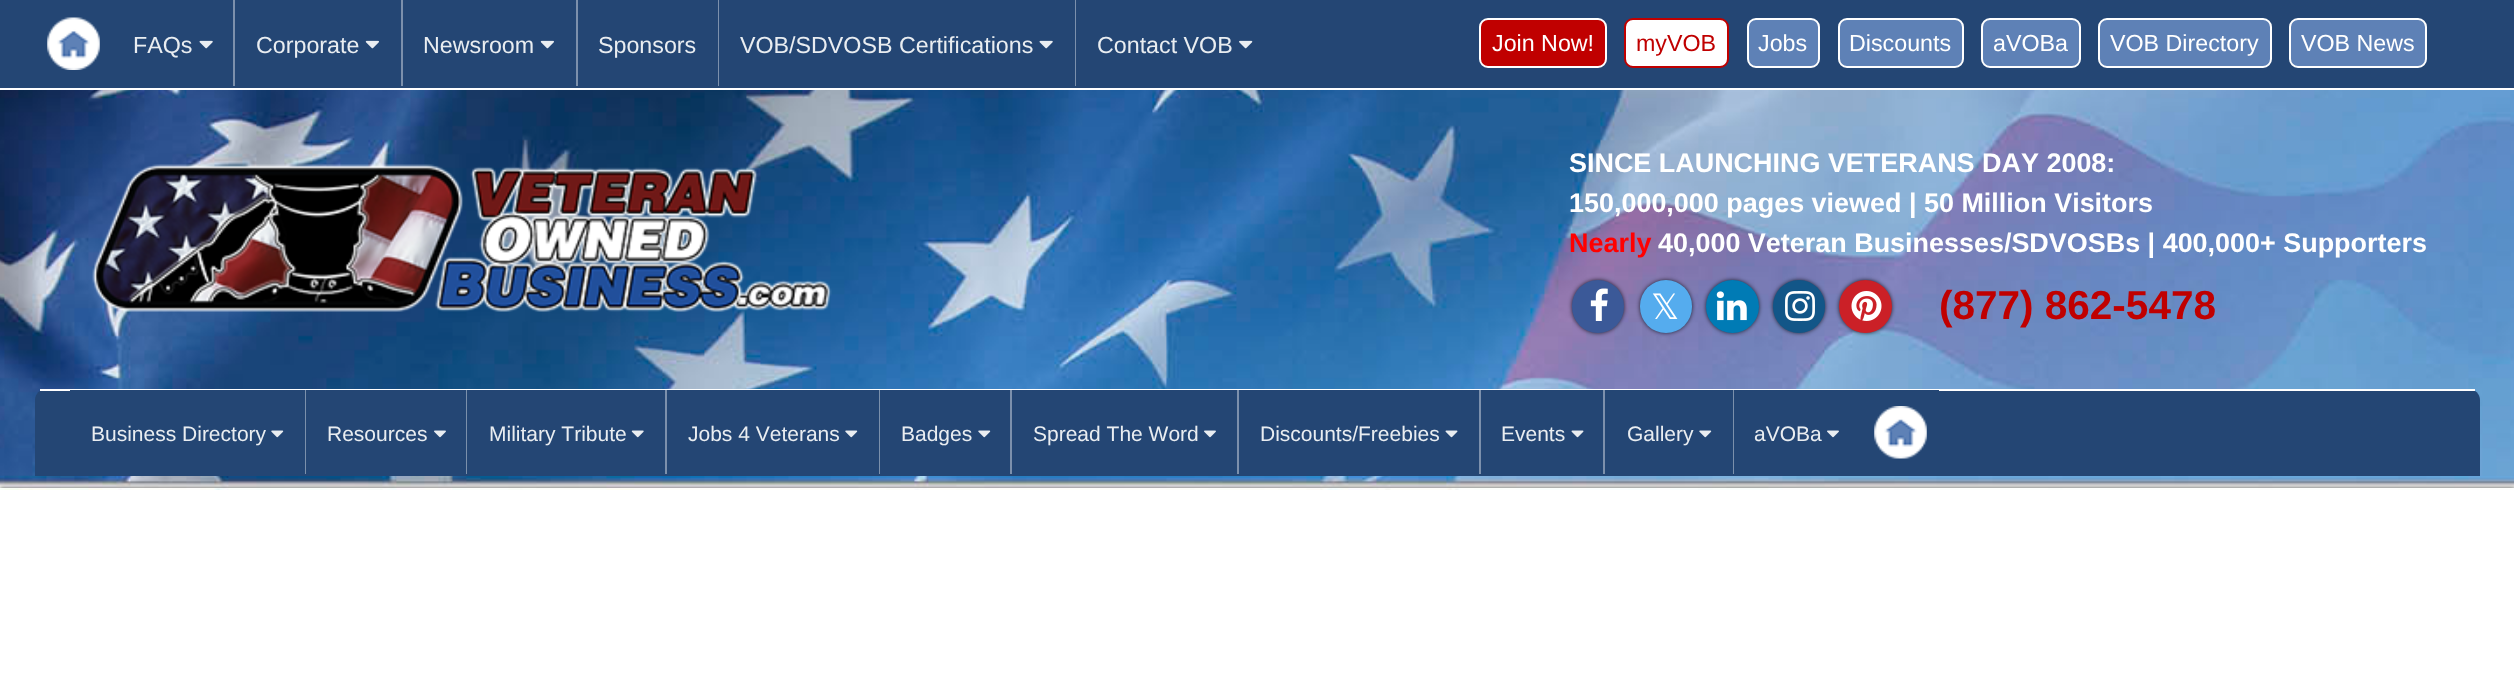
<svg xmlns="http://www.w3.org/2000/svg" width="2514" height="686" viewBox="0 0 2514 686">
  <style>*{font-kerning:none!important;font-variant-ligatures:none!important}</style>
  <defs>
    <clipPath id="clip1"><path d="M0 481H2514V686H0ZM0 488H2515V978H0Z" clip-rule="evenodd"/></clipPath>
  </defs>
  <rect width="100%" height="100%" fill="#fff"/>
  <image x="0" y="90" width="2514" height="400" href="img/1.png"/>
  <path d="M0 0h2514v88H0z" fill="#244674"/>
  <image x="47" y="17" width="53" height="53" href="img/2.png"/>
  <path d="M233 0h2v86H233z" fill="#7c90ac"/>
  <image x="199" y="40" width="14" height="9" href="img/3.png"/>
  <path d="M401 0h2v86H401z" fill="#7c90ac"/>
  <image x="365" y="40" width="14" height="9" href="img/4.png"/>
  <path d="M576 0h2v86H576z" fill="#7c90ac"/>
  <image x="540" y="40" width="14" height="9" href="img/4.png"/>
  <path d="M718 0h1v86H718z" fill="#7c90ac"/>
  <path d="M1075 0h1v86H1075z" fill="#7c90ac"/>
  <image x="1039" y="40" width="14" height="9" href="img/3.png"/>
  <image x="1239" y="40" width="14" height="9" href="img/5.png"/>
  <rect x="1480" y="19" width="126" height="48" rx="8" fill="#c00000" stroke="#fff" stroke-width="2"/>
  <rect x="1625" y="19" width="103" height="48" rx="8" fill="#fff" stroke="#c00000" stroke-width="2"/>
  <rect x="1748" y="19" width="71" height="48" rx="8" fill="#5e81b6" stroke="#fff" stroke-width="2"/>
  <rect x="1839" y="19" width="124" height="48" rx="8" fill="#5e81b6" stroke="#fff" stroke-width="2"/>
  <rect x="1982" y="19" width="98" height="48" rx="8" fill="#5e81b6" stroke="#fff" stroke-width="2"/>
  <rect x="2099" y="19" width="172" height="48" rx="8" fill="#5e81b6" stroke="#fff" stroke-width="2"/>
  <rect x="2290" y="19" width="136" height="48" rx="8" fill="#5e81b6" stroke="#fff" stroke-width="2"/>
  <image x="92" y="164" width="740" height="148" href="img/6.png"/>
  <rect x="1572" y="280" width="52" height="53" rx="26" fill="#000000bf" filter="blur(2px)"/>
  <rect x="1572" y="280" width="52" height="53" rx="26" fill="#3b5998"/>
  <image x="1590" y="288" width="18" height="33" href="img/7.png"/>
  <rect x="1640" y="280" width="52" height="53" rx="26" fill="#000000bf" filter="blur(2px)"/>
  <rect x="1640" y="280" width="52" height="53" rx="26" fill="#55acee"/>
  <rect x="1706" y="280" width="53" height="53" rx="26.5" fill="#000000bf" filter="blur(2px)"/>
  <circle cx="1732.5" cy="306.5" r="26.5" fill="#007bb5"/>
  <image x="1716" y="291" width="31" height="30" href="img/8.png"/>
  <rect x="1773" y="280" width="52" height="53" rx="26" fill="#000000bf" filter="blur(2px)"/>
  <rect x="1773" y="280" width="52" height="53" rx="26" fill="#125688"/>
  <image x="1785" y="291" width="30" height="30" href="img/9.png"/>
  <rect x="1839" y="280" width="53" height="53" rx="26.5" fill="#000000bf" filter="blur(2px)"/>
  <circle cx="1865.5" cy="306.5" r="26.5" fill="#cb2027"/>
  <image x="1851" y="291" width="31" height="30" href="img/10.png"/>
  <path d="M46 389H2469C2475 389 2480 394 2480 400V476H35V400C35 394 40 389 46 389Z" fill="#244674"/>
  <path d="M40 389h2435v2H40z" fill="#fff"/>
  <path d="M70 390h595v1H70z" fill="#244674"/>
  <path d="M305 390h1v84H305z" fill="#ffffff66"/>
  <image x="271" y="430" width="13" height="8" href="img/11.png"/>
  <path d="M466 390h1v84H466z" fill="#ffffff66"/>
  <image x="434" y="430" width="12" height="8" href="img/12.png"/>
  <path d="M665 390h2v84H665z" fill="#7c90ac"/>
  <image x="631" y="430" width="13" height="8" href="img/13.png"/>
  <path d="M667 390h343v1H667z" fill="#244674"/>
  <path d="M879 390h1v84H879z" fill="#ffffff66"/>
  <image x="845" y="430" width="13" height="8" href="img/11.png"/>
  <path d="M1010 390h2v84H1010z" fill="#7c90ac"/>
  <image x="978" y="430" width="13" height="8" href="img/11.png"/>
  <path d="M1012 390h225v1H1012z" fill="#244674"/>
  <path d="M1237 390h2v84H1237z" fill="#7c90ac"/>
  <image x="1204" y="430" width="12" height="8" href="img/12.png"/>
  <path d="M1239 390h240v1H1239z" fill="#244674"/>
  <path d="M1479 390h2v84H1479z" fill="#7c90ac"/>
  <image x="1445" y="430" width="13" height="8" href="img/14.png"/>
  <path d="M1481 390h122v1H1481z" fill="#244674"/>
  <path d="M1603 390h2v84H1603z" fill="#7c90ac"/>
  <image x="1571" y="430" width="13" height="8" href="img/14.png"/>
  <path d="M1605 390h334v1H1605z" fill="#244674"/>
  <path d="M1733 390h1v84H1733z" fill="#ffffff66"/>
  <image x="1699" y="430" width="13" height="8" href="img/11.png"/>
  <image x="1827" y="430" width="12" height="8" href="img/12.png"/>
  <image x="1874" y="406" width="53" height="53" href="img/15.png"/>
  <g clip-path="url(#clip1)">
    <path d="M0 488h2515v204H0z" fill="#000000bf" filter="blur(2px)"/>
  </g>
  <g font-family="Liberation Sans" font-size="23.25" fill="#e9edf1">
    <text x="133" y="53">FAQs</text>
    <text x="256" y="53">Corporate</text>
    <text x="423" y="53">Newsroom</text>
    <text x="598" y="53">Sponsors</text>
    <text x="740" y="53">VOB/SDVOSB Certifications</text>
    <text x="1097" y="53">Contact VOB</text>
  </g>
  <text x="1492" y="51" font-family="Liberation Sans" font-size="23.25" fill="#fff">Join Now!</text>
  <text x="1636" y="51" font-family="Liberation Sans" font-size="23.25" fill="#c00000">myVOB</text>
  <g font-family="Liberation Sans" font-size="23.25" fill="#fff">
    <text x="1758" y="51">Jobs</text>
    <text x="1849" y="51">Discounts</text>
    <text x="1993" y="51">aVOBa</text>
    <text x="2110" y="51">VOB Directory</text>
    <text x="2301" y="51">VOB News</text>
  </g>
  <g font-family="Liberation Sans" font-size="26.95" font-weight="bold" fill="#fff">
    <text x="1569" y="172">SINCE LAUNCHING VETERANS DAY 2008:</text>
    <text x="1569" y="212">150,000,000 pages viewed | 50 Million Visitors</text>
  </g>
  <text x="1569" y="252" font-family="Liberation Sans" font-size="26.95" font-weight="bold" fill="#f00">Nearly</text>
  <text x="1658" y="252" font-family="Liberation Sans" font-size="26.95" font-weight="bold" fill="#fff">40,000 Veteran Businesses/SDVOSBs | 400,000+ Supporters</text>
  <text x="1651" y="319" font-family="DejaVu Sans" font-size="35" fill="#fff">𝕏</text>
  <text x="1939" y="319" font-family="Liberation Sans" font-size="40.5" font-weight="bold" fill="#c00000">(877) 862-5478</text>
  <g font-family="Liberation Sans" font-size="21" fill="#e9edf1">
    <text x="91" y="441">Business Directory</text>
    <text x="327" y="441">Resources</text>
    <text x="489" y="441">Military Tribute</text>
    <text x="688" y="441">Jobs 4 Veterans</text>
    <text x="901" y="441">Badges</text>
    <text x="1033" y="441">Spread The Word</text>
    <text x="1260" y="441">Discounts/Freebies</text>
    <text x="1501" y="441">Events</text>
    <text x="1627" y="441">Gallery</text>
    <text x="1754" y="441">aVOBa</text>
  </g>
</svg>
